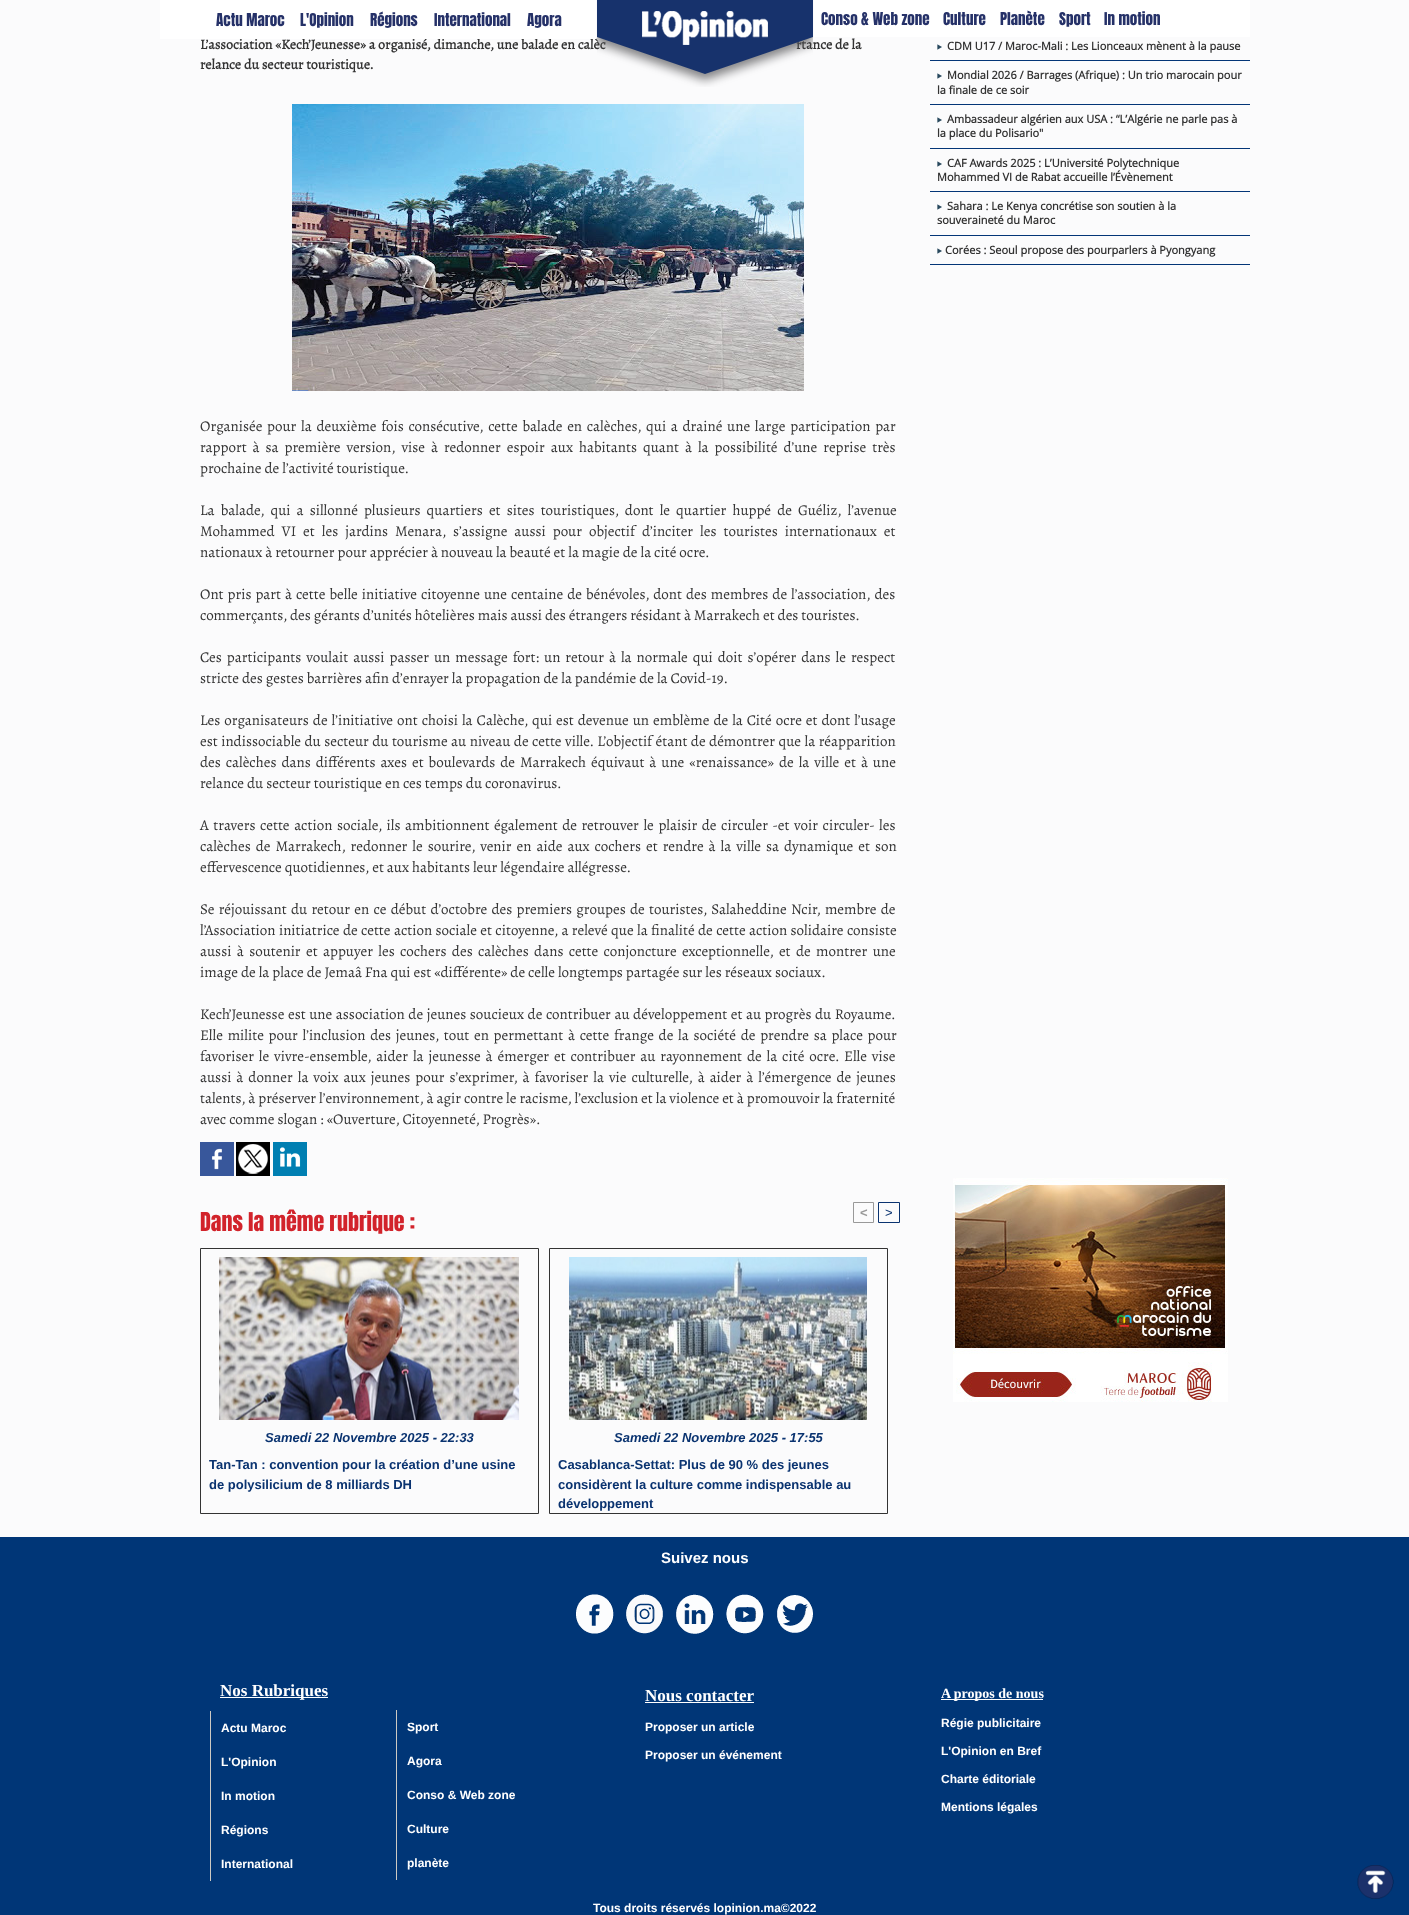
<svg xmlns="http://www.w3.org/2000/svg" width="1409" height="1915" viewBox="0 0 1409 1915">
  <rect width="100%" height="100%" fill="#fbfbfc"/>
  <path d="M814 0h436v37H814z" fill="#fff"/>
  <image x="292" y="104" width="512" height="287" href="img/2.png"/>
  <image x="200" y="1142" width="34" height="34" href="img/3.png"/>
  <image x="236" y="1142" width="34" height="34" href="img/4.png"/>
  <image x="273" y="1142" width="34" height="34" href="img/5.png"/>
  <path d="M853.5 1202.5h20v20H853.5z" fill="none" stroke="#999"/>
  <path d="M878.5 1202.5h21v20H878.5z" fill="none" stroke="#0a3370"/>
  <path d="M200.5 1248.5h338v265H200.5z" fill="none" stroke="#333"/>
  <image x="219" y="1257" width="300" height="163" href="img/6.png"/>
  <path d="M549.5 1248.5h338v265H549.5z" fill="none" stroke="#333"/>
  <image x="569" y="1257" width="298" height="163" href="img/7.png"/>
  <path d="M930 60h320v1H930z" fill="#033577"/>
  <image x="937" y="44" width="5" height="6" href="img/8.png"/>
  <path d="M930 104h320v1H930z" fill="#033577"/>
  <image x="937" y="73" width="5" height="6" href="img/8.png"/>
  <path d="M930 148h320v1H930z" fill="#033577"/>
  <image x="937" y="117" width="5" height="6" href="img/8.png"/>
  <path d="M930 191h320v1H930z" fill="#033577"/>
  <image x="937" y="161" width="5" height="6" href="img/8.png"/>
  <path d="M930 235h320v1H930z" fill="#033577"/>
  <image x="937" y="204" width="5" height="6" href="img/8.png"/>
  <path d="M930 264h320v1H930z" fill="#033577"/>
  <image x="937" y="248" width="5" height="6" href="img/8.png"/>
  <image x="953" y="1178" width="275" height="224" href="img/9.png"/>
  <path d="M0 1537h1409v378H0z" fill="#003677"/>
  <image x="575" y="1594" width="39" height="40" href="img/10.png"/>
  <image x="625" y="1594" width="38" height="40" href="img/11.png"/>
  <image x="675" y="1594" width="39" height="40" href="img/12.png"/>
  <image x="726" y="1594" width="38" height="40" href="img/13.png"/>
  <image x="776" y="1595" width="37" height="38" href="img/14.png"/>
  <path d="M220 1697h108v1H220z" fill="#fff"/>
  <path d="M210 1711h1v170H210z" fill="#ccc9c3"/>
  <path d="M396 1710h1v170H396z" fill="#ccc9c3"/>
  <path d="M645 1702h109v1H645z" fill="#fff"/>
  <path d="M941 1699h102v1H941z" fill="#fff"/>
  <image x="1357" y="1865" width="37" height="34" href="img/15.png"/>
  <g font-family="Anton" font-size="15" fill="#253168">
    <text x="821" y="25">Conso &amp; Web zone</text>
    <text x="943" y="25">Culture</text>
    <text x="1000" y="25">Planète</text>
    <text x="1059" y="25">Sport</text>
    <text x="1104" y="25">In motion</text>
  </g>
  <text x="200" y="49" font-family="Alegreya" font-size="14" font-weight="bold" fill="#333">L’association «Kech’Jeunesse» a organisé, dimanche, une balade en calèc</text>
  <path d="M160 0h436v39H160z" fill="#fff"/>
  <g font-family="Anton" font-size="15" fill="#253168">
    <text x="527" y="26">Agora</text>
    <text x="434" y="26">International</text>
    <text x="370" y="26">Régions</text>
    <text x="300" y="26">L'Opinion</text>
    <text x="216" y="26">Actu Maroc</text>
  </g>
  <text x="796" y="49" font-family="Alegreya" font-size="14" font-weight="bold" fill="#333">rtance de la</text>
  <image x="597" y="0" width="216" height="87" href="img/1.png"/>
  <text x="200" y="69" font-family="Alegreya" font-size="14" font-weight="bold" fill="#333">relance du secteur touristique.</text>
  <g font-family="Alegreya" font-size="15" fill="#333">
    <text x="200" y="431" word-spacing="1.75">Organisée pour la deuxième fois consécutive, cette balade en calèches, qui a drainé une large participation par</text>
    <text x="200" y="452" word-spacing="3">rapport à sa première version, vise à redonner espoir aux habitants quant à la possibilité d’une reprise très</text>
    <text x="200" y="473">prochaine de l’activité touristique.</text>
    <text x="200" y="515" word-spacing="3.1">La balade, qui a sillonné plusieurs quartiers et sites touristiques, dont le quartier huppé de Guéliz, l’avenue</text>
    <text x="200" y="536" word-spacing="4">Mohammed VI et les jardins Menara, s’assigne aussi pour objectif d’inciter les touristes internationaux et</text>
    <text x="200" y="557">nationaux à retourner pour apprécier à nouveau la beauté et la magie de la cité ocre.</text>
    <text x="200" y="599" word-spacing="1">Ont pris part à cette belle initiative citoyenne une centaine de bénévoles, dont des membres de l’association, des</text>
    <text x="200" y="620">commerçants, des gérants d’unités hôtelières mais aussi des étrangers résidant à Marrakech et des touristes.</text>
    <text x="200" y="662" word-spacing="2">Ces participants voulait aussi passer un message fort: un retour à la normale qui doit s’opérer dans le respect</text>
    <text x="200" y="683">stricte des gestes barrières afin d’enrayer la propagation de la pandémie de la Covid-19.</text>
    <text x="200" y="725" word-spacing="1">Les organisateurs de l’initiative ont choisi la Calèche, qui est devenue un emblème de la Cité ocre et dont l’usage</text>
    <text x="200" y="746" word-spacing="0.5">est indissociable du secteur du tourisme au niveau de cette ville. L’objectif étant de démontrer que la réapparition</text>
    <text x="200" y="767" word-spacing="2">des calèches dans différents axes et boulevards de Marrakech équivaut à une «renaissance» de la ville et à une</text>
    <text x="200" y="788">relance du secteur touristique en ces temps du coronavirus.</text>
    <text x="200" y="830" word-spacing="1.6">A travers cette action sociale, ils ambitionnent également de retrouver le plaisir de circuler -et voir circuler- les</text>
    <text x="200" y="851" word-spacing="2">calèches de Marrakech, redonner le sourire, venir en aide aux cochers et rendre à la ville sa dynamique et son</text>
    <text x="200" y="872">effervescence quotidiennes, et aux habitants leur légendaire allégresse.</text>
    <text x="200" y="914" word-spacing="1.3">Se réjouissant du retour en ce début d’octobre des premiers groupes de touristes, Salaheddine Ncir, membre de</text>
    <text x="200" y="935" word-spacing="0.4">l’Association initiatrice de cette action sociale et citoyenne, a relevé que la finalité de cette action solidaire consiste</text>
    <text x="200" y="956" word-spacing="2.4">aussi à soutenir et appuyer les cochers des calèches dans cette conjoncture exceptionnelle, et de montrer une</text>
    <text x="200" y="977">image de la place de Jemaâ Fna qui est «différente» de celle longtemps partagée sur les réseaux sociaux.</text>
    <text x="200" y="1019" word-spacing="0.6">Kech’Jeunesse est une association de jeunes soucieux de contribuer au développement et au progrès du Royaume.</text>
    <text x="200" y="1040" word-spacing="1.75">Elle milite pour l’inclusion des jeunes, tout en permettant à cette frange de la société de prendre sa place pour</text>
    <text x="200" y="1061" word-spacing="1.9">favoriser le vivre-ensemble, aider la jeunesse à émerger et contribuer au rayonnement de la cité ocre. Elle vise</text>
    <text x="200" y="1082" word-spacing="2">aussi à donner la voix aux jeunes pour s’exprimer, à favoriser la vie culturelle, à aider à l’émergence de jeunes</text>
    <text x="200" y="1103">talents, à préserver l’environnement, à agir contre le racisme, l’exclusion et la violence et à promouvoir la fraternité</text>
    <text x="200" y="1124">avec comme slogan : «Ouverture, Citoyenneté, Progrès».</text>
  </g>
  <text x="200" y="1231" font-family="Anton" font-size="22" fill="#d2232b">Dans la même rubrique :</text>
  <text x="860" y="1217" font-family="Liberation Sans" font-size="13" font-weight="bold" fill="#999">&lt;</text>
  <text x="885" y="1217" font-family="Liberation Sans" font-size="13" fill="#0a3370">&gt;</text>
  <text x="265" y="1442" font-family="Liberation Sans" font-size="13" font-weight="bold" font-style="italic" fill="#0a3370">Samedi 22 Novembre 2025 - 22:33</text>
  <g font-family="Liberation Sans" font-size="13" font-weight="bold" fill="#0a3370">
    <text x="209" y="1469">Tan-Tan : convention pour la création d’une usine</text>
    <text x="209" y="1489">de polysilicium de 8 milliards DH</text>
  </g>
  <text x="614" y="1442" font-family="Liberation Sans" font-size="13" font-weight="bold" font-style="italic" fill="#0a3370">Samedi 22 Novembre 2025 - 17:55</text>
  <g font-family="Liberation Sans" font-size="13" font-weight="bold" fill="#0a3370">
    <text x="558" y="1469">Casablanca-Settat: Plus de 90 % des jeunes</text>
    <text x="558" y="1489">considèrent la culture comme indispensable au</text>
    <text x="558" y="1508">développement</text>
  </g>
  <g font-family="Open Sans" font-size="11" font-weight="bold" fill="#333">
    <text x="947" y="50">CDM U17 / Maroc-Mali : Les Lionceaux mènent à la pause</text>
    <text x="947" y="79">Mondial 2026 / Barrages (Afrique) : Un trio marocain pour</text>
    <text x="937" y="94">la finale de ce soir</text>
    <text x="947" y="123">Ambassadeur algérien aux USA : “L’Algérie ne parle pas à</text>
    <text x="937" y="137">la place du Polisario"</text>
    <text x="947" y="167">CAF Awards 2025 : L’Université Polytechnique</text>
    <text x="937" y="181">Mohammed VI de Rabat accueille l’Évènement</text>
    <text x="947" y="210">Sahara : Le Kenya concrétise son soutien à la</text>
    <text x="937" y="224">souveraineté du Maroc</text>
    <text x="945" y="254">Corées : Seoul propose des pourparlers à Pyongyang</text>
  </g>
  <text x="661" y="1563" font-family="Liberation Sans" font-size="15" font-weight="bold" fill="#fff">Suivez nous</text>
  <text x="220" y="1696" font-family="Liberation Serif" font-size="17" font-weight="bold" fill="#fff">Nos Rubriques</text>
  <g font-family="Liberation Sans" font-size="12" font-weight="bold" fill="#fff">
    <text x="221" y="1732">Actu Maroc</text>
    <text x="221" y="1766">L'Opinion</text>
    <text x="221" y="1800">In motion</text>
    <text x="221" y="1834">Régions</text>
    <text x="221" y="1868">International</text>
    <text x="407" y="1731">Sport</text>
    <text x="407" y="1765">Agora</text>
    <text x="407" y="1799">Conso &amp; Web zone</text>
    <text x="407" y="1833">Culture</text>
    <text x="407" y="1867">planète</text>
  </g>
  <text x="645" y="1701" font-family="Liberation Serif" font-size="17" font-weight="bold" fill="#fff">Nous contacter</text>
  <g font-family="Liberation Sans" font-size="12" font-weight="bold" fill="#fff">
    <text x="645" y="1731">Proposer un article</text>
    <text x="645" y="1759">Proposer un événement</text>
  </g>
  <text x="941" y="1698" font-family="Liberation Serif" font-size="14" font-weight="bold" fill="#fff">A propos de nous</text>
  <g font-family="Liberation Sans" font-size="12" font-weight="bold" fill="#fff">
    <text x="941" y="1727">Régie publicitaire</text>
    <text x="941" y="1755">L'Opinion en Bref</text>
    <text x="941" y="1783">Charte éditoriale</text>
    <text x="941" y="1811">Mentions légales</text>
    <text x="593" y="1912">Tous droits réservés lopinion.ma©2022</text>
  </g>
</svg>
